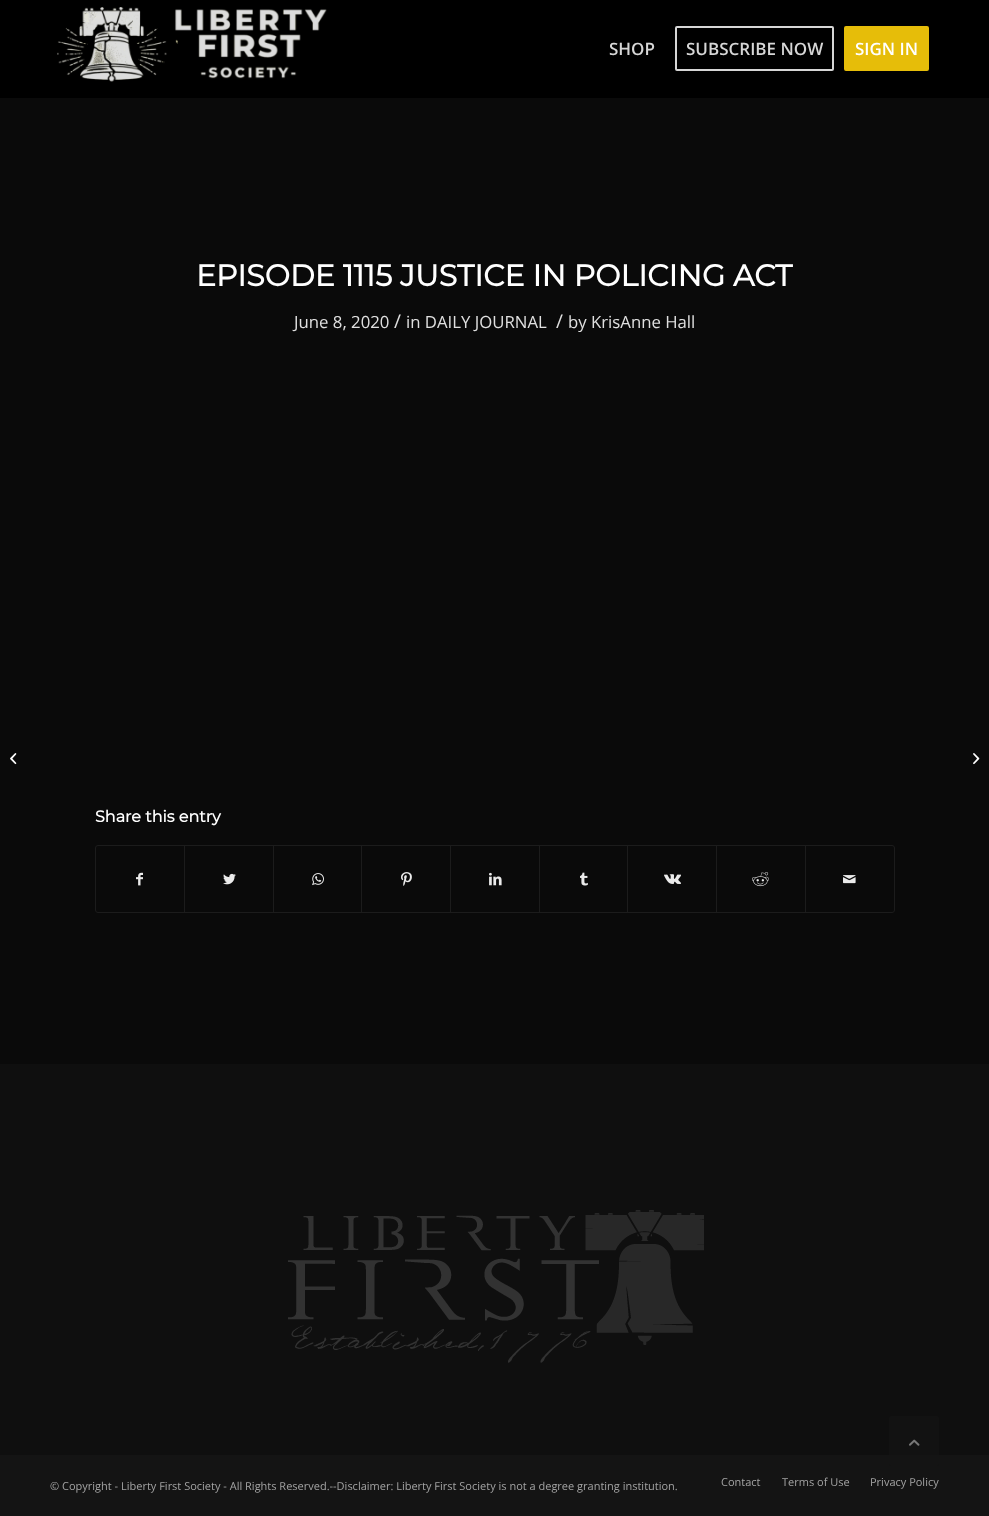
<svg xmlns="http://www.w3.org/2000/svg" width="989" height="1516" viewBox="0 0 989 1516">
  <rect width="100%" height="100%" fill="#0a0a0a"/>
  <path d="M0 0h989v98H0z" fill="#000"/>
  <image x="57" y="7" width="270" height="75" href="img/1.png"/>
  <rect x="676" y="27" width="157" height="43" rx="1" fill="none" stroke="#d6d6d6" stroke-width="2"/>
  <rect x="845" y="27" width="83" height="43" rx="1" fill="#e6bd09" stroke="#e6bd09" stroke-width="2"/>
  <image x="10" y="753" width="7" height="12" href="img/2.png"/>
  <rect x="95.5" y="845.5" width="799" height="67" rx="2.5" fill="none" stroke="#1c1c1c"/>
  <image x="136" y="872" width="7" height="14" href="img/3.png"/>
  <path d="M184 846h1v66H184z" fill="#1c1c1c"/>
  <image x="223" y="873" width="13" height="12" href="img/4.png"/>
  <path d="M273 846h1v66H273z" fill="#1c1c1c"/>
  <image x="312" y="873" width="12" height="13" href="img/5.png"/>
  <path d="M361 846h1v66H361z" fill="#1c1c1c"/>
  <image x="401" y="872" width="11" height="14" href="img/6.png"/>
  <path d="M450 846h1v66H450z" fill="#1c1c1c"/>
  <image x="489" y="872" width="13" height="14" href="img/7.png"/>
  <path d="M539 846h1v66H539z" fill="#1c1c1c"/>
  <image x="580" y="872" width="8" height="14" href="img/8.png"/>
  <path d="M627 846h1v66H627z" fill="#1c1c1c"/>
  <image x="664" y="874" width="17" height="10" href="img/9.png"/>
  <path d="M716 846h1v66H716z" fill="#1c1c1c"/>
  <image x="752" y="872" width="17" height="15" href="img/10.png"/>
  <path d="M805 846h1v66H805z" fill="#1c1c1c"/>
  <image x="843" y="875" width="13" height="9" href="img/11.png"/>
  <path d="M0 1064h989v391H0z" fill="#0f0f0f"/>
  <image x="288" y="1210" width="416" height="153" href="img/12.png"/>
  <path d="M0 1455h989v61H0z" fill="#141414"/>
  <image x="973" y="753" width="7" height="12" href="img/13.png"/>
  <rect x="889" y="1416" width="50" height="50" rx="2" fill="#141414b3"/>
  <image x="909" y="1439" width="11" height="7" href="img/14.png"/>
  <g font-family="Open Sans" font-size="17" font-weight="600" fill="#d6d6d6">
    <text x="609" y="55">SHOP</text>
    <text x="686" y="55">SUBSCRIBE NOW</text>
  </g>
  <text x="855" y="55" font-family="Open Sans" font-size="17" font-weight="600" fill="#fff">SIGN IN</text>
  <text x="196" y="286" font-family="Montserrat" font-size="30" font-weight="bold" fill="#fff">EPISODE 1115 JUSTICE IN POLICING ACT</text>
  <text x="294" y="328" font-family="Open Sans" font-size="16.75" fill="#e0e0e0">June 8, 2020</text>
  <text x="394" y="328" font-family="Open Sans" font-size="19" fill="#e0e0e0">/</text>
  <text x="406" y="328" font-family="Open Sans" font-size="16.75" fill="#e0e0e0">in DAILY JOURNAL</text>
  <text x="556" y="328" font-family="Open Sans" font-size="19" fill="#e0e0e0">/</text>
  <text x="568" y="328" font-family="Open Sans" font-size="16.75" fill="#e0e0e0">by KrisAnne Hall</text>
  <text x="95" y="822" font-family="Montserrat" font-size="16" font-weight="bold" fill="#fff">Share this entry</text>
  <g font-family="Open Sans" font-size="11" fill="#a3a3a3">
    <text x="50" y="1490">© Copyright - Liberty First Society - All Rights Reserved.--Disclaimer: Liberty First Society is not a degree granting institution.</text>
    <text x="721" y="1486">Contact</text>
    <text x="782" y="1486">Terms of Use</text>
    <text x="870" y="1486">Privacy Policy</text>
  </g>
</svg>
